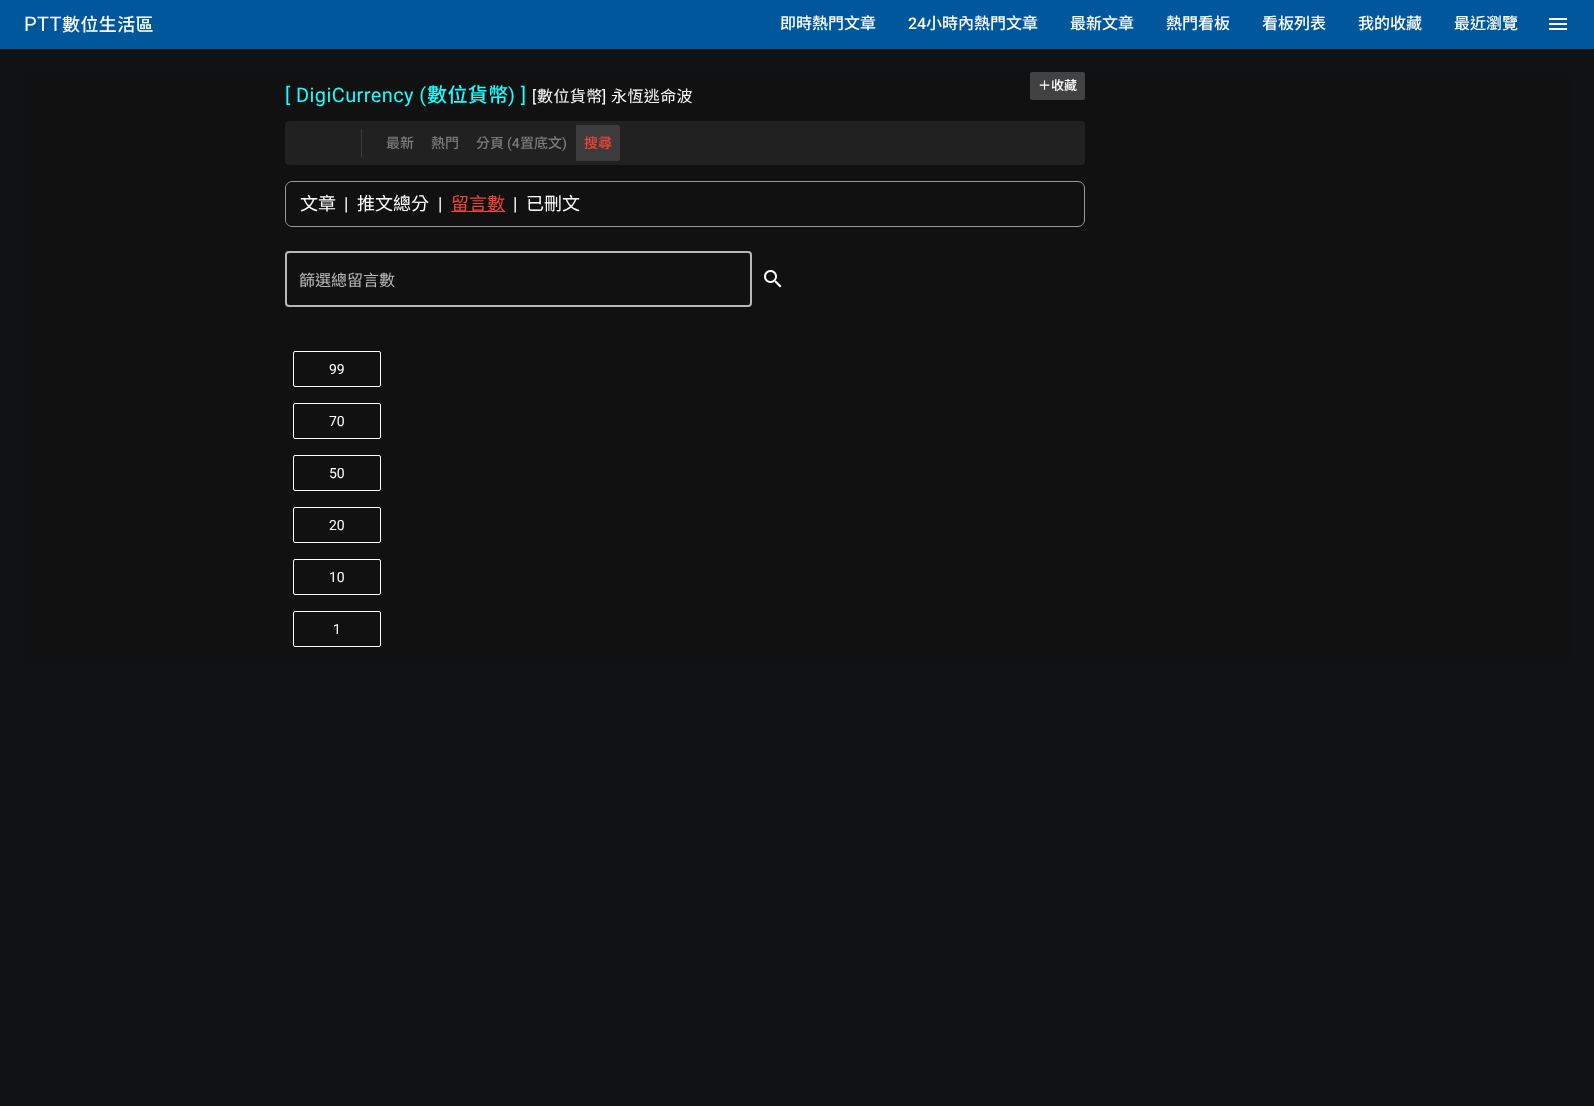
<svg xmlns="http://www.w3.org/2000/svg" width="1594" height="1106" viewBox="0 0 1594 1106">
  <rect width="100%" height="100%" fill="#111214"/>
  <path d="M0 0h1594v49H0z" fill="#01579b"/>
  <image x="1549" y="18" width="18" height="12" href="img/1.png"/>
  <rect x="24" y="72" width="1546" height="591" rx="8" fill="#111"/>
  <rect x="1030" y="72" width="55" height="28" rx="2" fill="#424242"/>
  <rect x="285" y="121" width="800" height="44" rx="4" fill="#212121"/>
  <path d="M361 129h1v28H361z" fill="#3c3c3c"/>
  <path d="M576 125H618C619 125 620 126 620 127V159C620 160 619 161 618 161H576Z" fill="#3c3c3c"/>
  <rect x="285.5" y="181.5" width="799" height="45" rx="6.5" fill="none" stroke="#999"/>
  <path d="M451 211h54v1H451z" fill="#f44336"/>
  <rect x="286" y="252" width="465" height="54" rx="3" fill="none" stroke="#b8b8b8" stroke-width="2"/>
  <image x="764" y="270" width="18" height="18" href="img/2.png"/>
  <rect x="293.5" y="351.5" width="87" height="35" rx="1.5" fill="none" stroke="#fff"/>
  <rect x="293.5" y="403.5" width="87" height="35" rx="1.5" fill="none" stroke="#fff"/>
  <rect x="293.5" y="455.5" width="87" height="35" rx="1.5" fill="none" stroke="#fff"/>
  <rect x="293.5" y="507.5" width="87" height="35" rx="1.5" fill="none" stroke="#fff"/>
  <rect x="293.5" y="559.5" width="87" height="35" rx="1.5" fill="none" stroke="#fff"/>
  <rect x="293.5" y="611.5" width="87" height="35" rx="1.5" fill="none" stroke="#fff"/>
  <text x="24" y="31" font-family="Roboto" font-size="20" letter-spacing="0.4" fill="#fff">PTT</text>
  <text x="62" y="31" font-family="Noto Sans CJK TC" font-size="18" font-weight="500" letter-spacing="0.4" fill="#fff">數位生活區</text>
  <text x="780" y="29" font-family="Noto Sans CJK TC" font-size="16" font-weight="500" fill="#fff">即時熱門文章</text>
  <text x="908" y="29" font-family="Roboto" font-size="16" font-weight="500" fill="#fff">24</text>
  <g font-family="Noto Sans CJK TC" font-size="16" font-weight="500" fill="#fff">
    <text x="926" y="29">小時內熱門文章</text>
    <text x="1070" y="29">最新文章</text>
    <text x="1166" y="29">熱門看板</text>
    <text x="1262" y="29">看板列表</text>
    <text x="1358" y="29">我的收藏</text>
    <text x="1454" y="29">最近瀏覽</text>
  </g>
  <text x="285" y="102" font-family="Roboto" font-size="20" letter-spacing="0.4" fill="#18ffff">[ DigiCurrency (</text>
  <text x="427" y="102" font-family="Noto Sans CJK TC" font-size="20" font-weight="500" letter-spacing="0.4" fill="#18ffff">數位貨幣</text>
  <text x="508" y="102" font-family="Roboto" font-size="20" letter-spacing="0.4" fill="#18ffff">) ]</text>
  <text x="532" y="102" font-family="Roboto" font-size="16" letter-spacing="0.4" fill="#fff">[</text>
  <text x="537" y="102" font-family="Noto Sans CJK TC" font-size="16" letter-spacing="0.4" fill="#fff">數位貨幣</text>
  <text x="602" y="102" font-family="Roboto" font-size="16" letter-spacing="0.4" fill="#fff">]</text>
  <text x="611" y="102" font-family="Noto Sans CJK TC" font-size="16" letter-spacing="0.4" fill="#fff">永恆逃命波</text>
  <text x="1038" y="90" font-family="Noto Sans CJK TC" font-size="13" font-weight="500" fill="#fff">＋收藏</text>
  <g font-family="Noto Sans CJK TC" font-size="14" font-weight="500" fill="#7a7a7a">
    <text x="386" y="148">最新</text>
    <text x="431" y="148">熱門</text>
    <text x="476" y="148">分頁</text>
  </g>
  <text x="507" y="148" font-family="Roboto" font-size="14" font-weight="500" fill="#7a7a7a">(4</text>
  <text x="520" y="148" font-family="Noto Sans CJK TC" font-size="14" font-weight="500" fill="#7a7a7a">置底文</text>
  <text x="562" y="148" font-family="Roboto" font-size="14" font-weight="500" fill="#7a7a7a">)</text>
  <text x="584" y="148" font-family="Noto Sans CJK TC" font-size="14" font-weight="500" fill="#f44336">搜尋</text>
  <text x="300" y="210" font-family="Noto Sans CJK TC" font-size="18" fill="#fff">文章</text>
  <text x="344" y="210" font-family="Roboto" font-size="18" fill="#fff">|</text>
  <text x="357" y="210" font-family="Noto Sans CJK TC" font-size="18" fill="#fff">推文總分</text>
  <text x="438" y="210" font-family="Roboto" font-size="18" fill="#fff">|</text>
  <text x="451" y="210" font-family="Noto Sans CJK TC" font-size="18" fill="#f44336">留言數</text>
  <text x="513" y="210" font-family="Roboto" font-size="18" fill="#fff">|</text>
  <text x="526" y="210" font-family="Noto Sans CJK TC" font-size="18" fill="#fff">已刪文</text>
  <text x="299" y="286" font-family="Noto Sans CJK TC" font-size="16" fill="#b8b8b8">篩選總留言數</text>
  <g font-family="Roboto" font-size="14" fill="#fff">
    <text x="329" y="374">99</text>
    <text x="329" y="426">70</text>
    <text x="329" y="478">50</text>
    <text x="329" y="530">20</text>
    <text x="329" y="582">10</text>
    <text x="333" y="634">1</text>
  </g>
</svg>
